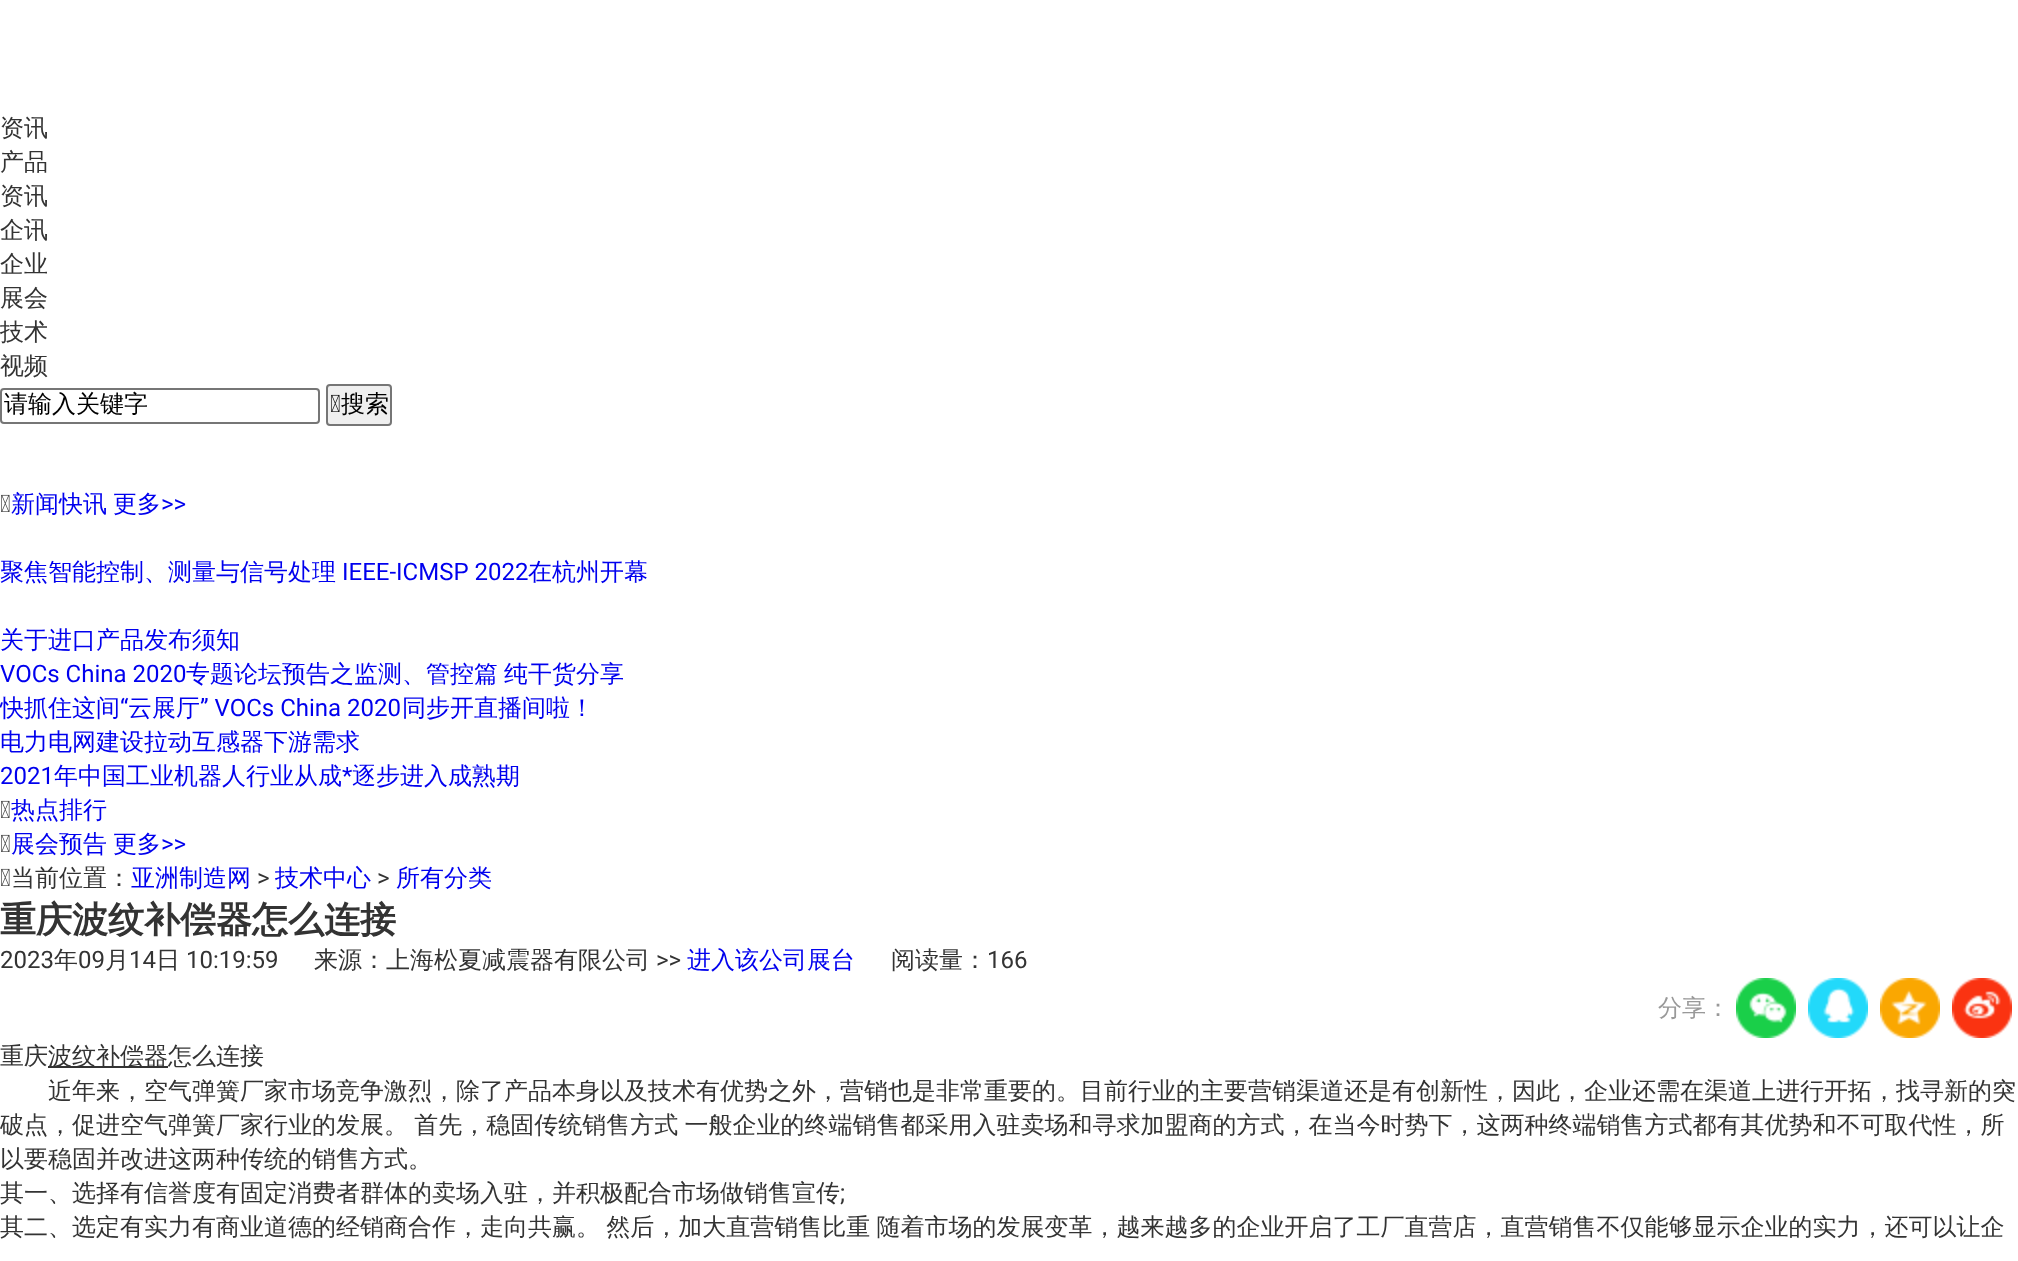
<svg xmlns="http://www.w3.org/2000/svg" width="2018" height="1261" viewBox="0 0 2018 1261">
  <rect width="100%" height="100%" fill="#fff"/>
  <rect x="1" y="389" width="318" height="34" rx="3" fill="none" stroke="#767676" stroke-width="2"/>
  <rect x="327" y="385" width="64" height="40" rx="3" fill="#efefef" stroke="#767676" stroke-width="2"/>
  <image x="331" y="394" width="9" height="18" href="img/1.png"/>
  <image x="1" y="494" width="9" height="18" href="img/2.png"/>
  <image x="1" y="800" width="9" height="18" href="img/2.png"/>
  <image x="1" y="834" width="9" height="18" href="img/2.png"/>
  <image x="1" y="868" width="9" height="18" href="img/2.png"/>
  <image x="1736" y="978" width="60" height="60" href="img/3.png"/>
  <image x="1808" y="978" width="60" height="60" href="img/4.png"/>
  <image x="1880" y="978" width="60" height="60" href="img/5.png"/>
  <image x="1952" y="978" width="60" height="60" href="img/6.png"/>
  <path d="M48 1066h120v2H48z" fill="#333"/>
  <g font-family="WenQuanYi Zen Hei" font-size="24" font-weight="500" fill="#333">
    <text x="0" y="136">资讯</text>
    <text x="0" y="170">产品</text>
    <text x="0" y="204">资讯</text>
    <text x="0" y="238">企讯</text>
    <text x="0" y="272">企业</text>
    <text x="0" y="306">展会</text>
    <text x="0" y="340">技术</text>
    <text x="0" y="374">视频</text>
  </g>
  <g font-family="WenQuanYi Zen Hei" font-size="24" font-weight="500" fill="#000">
    <text x="4" y="412">请输入关键字</text>
    <text x="341" y="412">搜索</text>
  </g>
  <g font-family="WenQuanYi Zen Hei" font-size="24" font-weight="500" fill="#00e">
    <text x="11" y="512">新闻快讯</text>
    <text x="113" y="512">更多</text>
  </g>
  <text x="161" y="512" font-family="Roboto" font-size="24" fill="#00e">&gt;&gt;</text>
  <text x="0" y="580" font-family="WenQuanYi Zen Hei" font-size="24" font-weight="500" fill="#00e">聚焦智能控制、测量与信号处理</text>
  <text x="342" y="580" font-family="Roboto" font-size="24" fill="#00e">IEEE-ICMSP 2022</text>
  <g font-family="WenQuanYi Zen Hei" font-size="24" font-weight="500" fill="#00e">
    <text x="528" y="580">在杭州开幕</text>
    <text x="0" y="648">关于进口产品发布须知</text>
  </g>
  <text x="0" y="682" font-family="Roboto" font-size="24" fill="#00e">VOCs China 2020</text>
  <g font-family="WenQuanYi Zen Hei" font-size="24" font-weight="500" fill="#00e">
    <text x="186" y="682">专题论坛预告之监测、管控篇</text>
    <text x="504" y="682">纯干货分享</text>
    <text x="0" y="716">快抓住这间</text>
  </g>
  <text x="120" y="716" font-family="Roboto" font-size="24" fill="#00e">“</text>
  <text x="128" y="716" font-family="WenQuanYi Zen Hei" font-size="24" font-weight="500" fill="#00e">云展厅</text>
  <text x="200" y="716" font-family="Roboto" font-size="24" fill="#00e">” VOCs China 2020</text>
  <g font-family="WenQuanYi Zen Hei" font-size="24" font-weight="500" fill="#00e">
    <text x="402" y="716">同步开直播间啦！</text>
    <text x="0" y="750">电力电网建设拉动互感器下游需求</text>
  </g>
  <text x="0" y="784" font-family="Roboto" font-size="24" fill="#00e">2021</text>
  <text x="54" y="784" font-family="WenQuanYi Zen Hei" font-size="24" font-weight="500" fill="#00e">年中国工业机器人行业从成</text>
  <text x="342" y="784" font-family="Roboto" font-size="24" fill="#00e">*</text>
  <g font-family="WenQuanYi Zen Hei" font-size="24" font-weight="500" fill="#00e">
    <text x="352" y="784">逐步进入成熟期</text>
    <text x="11" y="818">热点排行</text>
    <text x="11" y="852">展会预告</text>
    <text x="113" y="852">更多</text>
  </g>
  <text x="161" y="852" font-family="Roboto" font-size="24" fill="#00e">&gt;&gt;</text>
  <text x="11" y="886" font-family="WenQuanYi Zen Hei" font-size="24" font-weight="500" fill="#333">当前位置：</text>
  <text x="131" y="886" font-family="WenQuanYi Zen Hei" font-size="24" font-weight="500" fill="#00e">亚洲制造网</text>
  <text x="257" y="886" font-family="Roboto" font-size="24" fill="#333">&gt;</text>
  <text x="275" y="886" font-family="WenQuanYi Zen Hei" font-size="24" font-weight="500" fill="#00e">技术中心</text>
  <text x="377" y="886" font-family="Roboto" font-size="24" fill="#333">&gt;</text>
  <text x="396" y="886" font-family="WenQuanYi Zen Hei" font-size="24" font-weight="500" fill="#00e">所有分类</text>
  <text x="0" y="932" font-family="WenQuanYi Zen Hei" font-size="36" font-weight="bold" fill="#333">重庆波纹补偿器怎么连接</text>
  <text x="0" y="968" font-family="Roboto" font-size="24" fill="#333">2023</text>
  <text x="54" y="968" font-family="WenQuanYi Zen Hei" font-size="24" font-weight="500" fill="#333">年</text>
  <text x="78" y="968" font-family="Roboto" font-size="24" fill="#333">09</text>
  <text x="105" y="968" font-family="WenQuanYi Zen Hei" font-size="24" font-weight="500" fill="#333">月</text>
  <text x="129" y="968" font-family="Roboto" font-size="24" fill="#333">14</text>
  <text x="156" y="968" font-family="WenQuanYi Zen Hei" font-size="24" font-weight="500" fill="#333">日</text>
  <text x="186" y="968" font-family="Roboto" font-size="24" fill="#333">10:19:59</text>
  <text x="314" y="968" font-family="WenQuanYi Zen Hei" font-size="24" font-weight="500" fill="#333">来源：上海松夏减震器有限公司</text>
  <text x="656" y="968" font-family="Roboto" font-size="24" fill="#333">&gt;&gt;</text>
  <text x="687" y="968" font-family="WenQuanYi Zen Hei" font-size="24" font-weight="500" fill="#00e">进入该公司展台</text>
  <text x="891" y="968" font-family="WenQuanYi Zen Hei" font-size="24" font-weight="500" fill="#333">阅读量：</text>
  <text x="987" y="968" font-family="Roboto" font-size="24" fill="#333">166</text>
  <text x="1658" y="1016" font-family="WenQuanYi Zen Hei" font-size="24" font-weight="500" fill="#999">分享：</text>
  <g font-family="WenQuanYi Zen Hei" font-size="24" font-weight="500" fill="#333">
    <text x="0" y="1064">重庆</text>
    <text x="48" y="1064">波纹补偿器怎么连接</text>
    <text x="48" y="1099">近年来，空气弹簧厂家市场竞争激烈，除了产品本身以及技术有优势之外，营销也是非常重要的。目前行业的主要营销渠道还是有创新性，因此，企业还需在渠道上进行开拓，找寻新的突</text>
    <text x="0" y="1133" word-spacing="-1">破点，促进空气弹簧厂家行业的发展。 首先，稳固传统销售方式 一般企业的终端销售都采用入驻卖场和寻求加盟商的方式，在当今时势下，这两种终端销售方式都有其优势和不可取代性，所</text>
    <text x="0" y="1167">以要稳固并改进这两种传统的销售方式。</text>
    <text x="0" y="1201">其一、选择有信誉度有固定消费者群体的卖场入驻，并积极配合市场做销售宣传</text>
  </g>
  <text x="840" y="1201" font-family="Roboto" font-size="24" fill="#333">;</text>
  <text x="0" y="1235" word-spacing="-1" font-family="WenQuanYi Zen Hei" font-size="24" font-weight="500" fill="#333">其二、选定有实力有商业道德的经销商合作，走向共赢。 然后，加大直营销售比重 随着市场的发展变革，越来越多的企业开启了工厂直营店，直营销售不仅能够显示企业的实力，还可以让企</text>
</svg>
